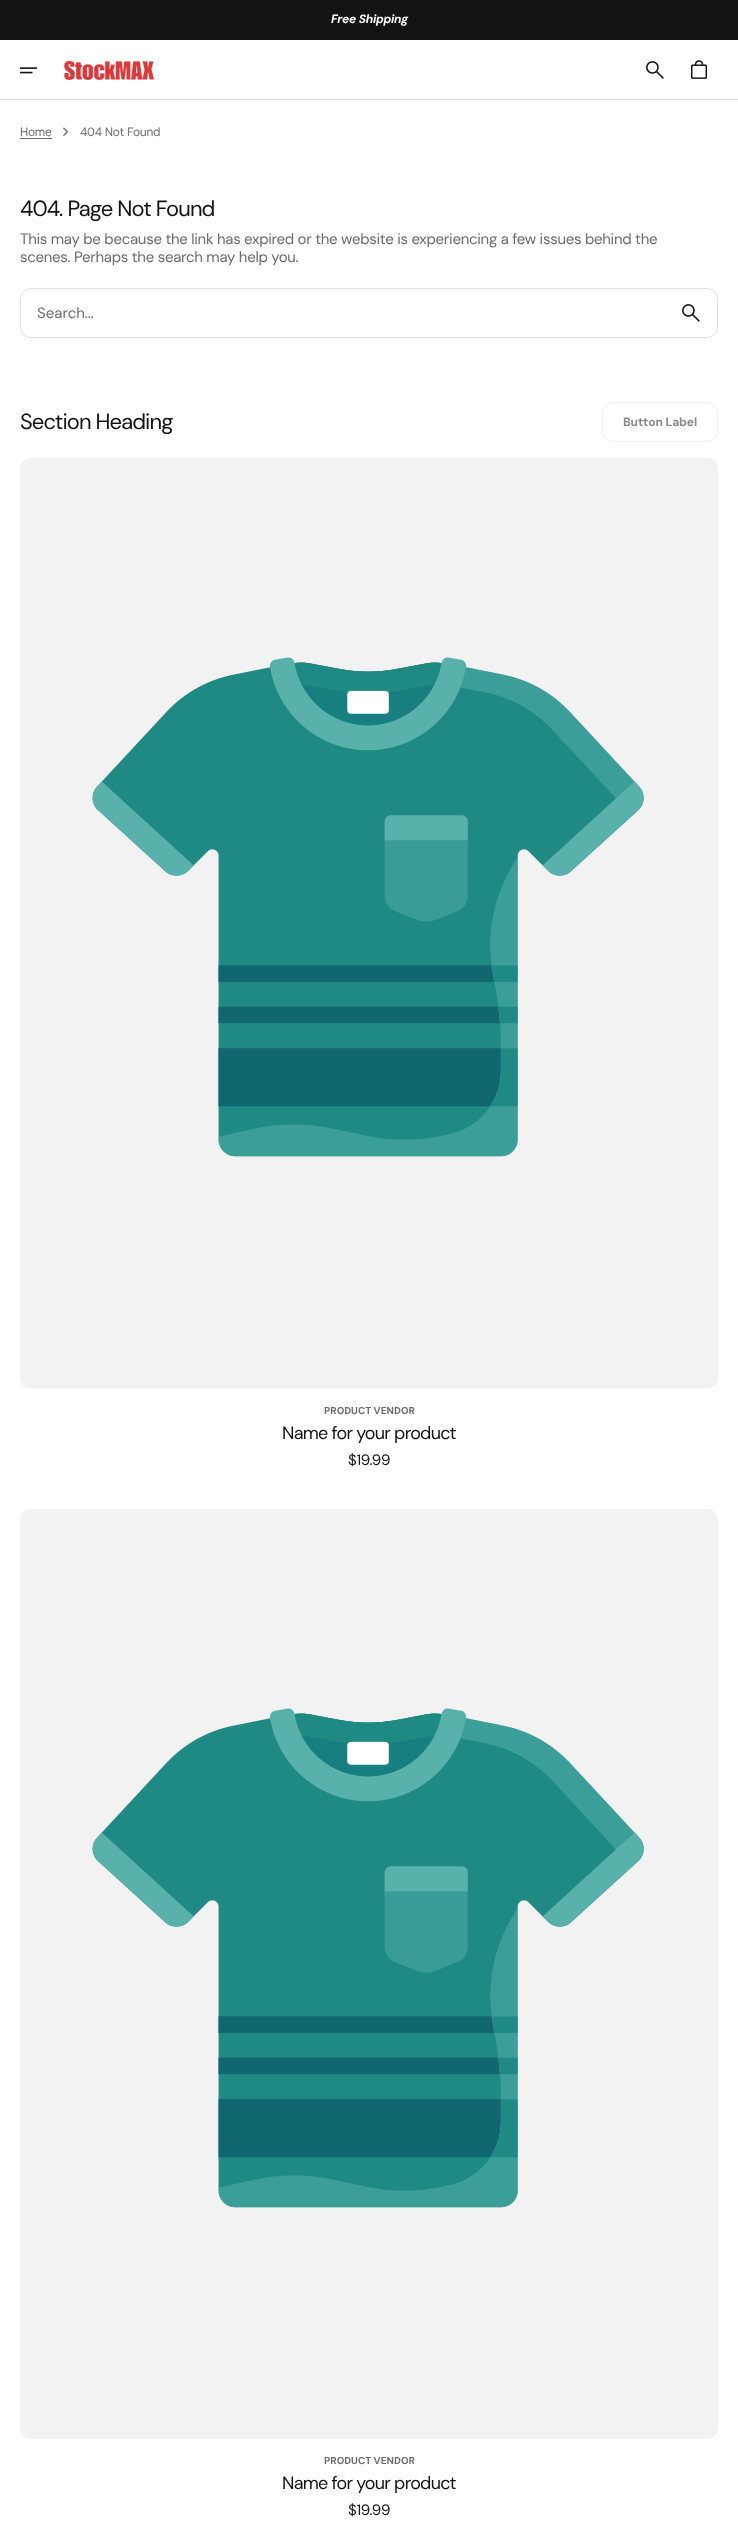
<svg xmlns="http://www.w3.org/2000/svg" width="738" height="2529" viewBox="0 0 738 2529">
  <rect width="100%" height="100%" fill="#fff"/>
  <path d="M0 0h738v40H0z" fill="#131313"/>
  <image x="20" y="67" width="17" height="7" href="img/1.png"/>
  <image x="64" y="61" width="90" height="19" href="img/2.png"/>
  <image x="646" y="61" width="18" height="18" href="img/3.png"/>
  <image x="691" y="60" width="16" height="19" href="img/4.png"/>
  <path d="M0 99h738v1H0z" fill="#dfdfdf"/>
  <path d="M20 138h32v1H20z" fill="#6d6d6d"/>
  <image x="63" y="127" width="6" height="9" href="img/5.png"/>
  <rect x="20.5" y="288.5" width="697" height="49" rx="10.5" fill="none" stroke="#dfdfdf"/>
  <rect x="21" y="290" width="644" height="47" rx="11" fill="#fff"/>
  <image x="682" y="304" width="18" height="18" href="img/3.png"/>
  <rect x="602.5" y="402.5" width="115" height="39" rx="10.5" fill="none" stroke="#efefef"/>
  <image x="20" y="458" width="698" height="931" href="img/6.png"/>
  <image x="20" y="1509" width="698" height="930" href="img/7.png"/>
  <text x="331" y="23" font-family="DM Sans" font-size="12" font-weight="bold" font-style="italic" letter-spacing="-0.28" fill="#fff">Free Shipping</text>
  <g font-family="'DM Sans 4'" font-size="12" letter-spacing="-0.28" fill="#6d6d6d">
    <text x="20" y="136">Home</text>
    <text x="80" y="136">404 Not Found</text>
  </g>
  <text x="20" y="216" font-family="DM Sans" font-size="22" letter-spacing="-0.9" fill="#131313">404. Page Not Found</text>
  <g font-family="'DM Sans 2'" font-size="15" letter-spacing="-0.28" fill="#6d6d6d">
    <text x="20" y="244">This may be because the link has expired or the website is experiencing a few issues behind the</text>
    <text x="20" y="262">scenes. Perhaps the search may help you.</text>
  </g>
  <text x="37" y="318" font-family="'DM Sans 2'" font-size="15" fill="#6d6d6d">Search...</text>
  <text x="20" y="429" font-family="DM Sans" font-size="22" letter-spacing="-0.9" fill="#131313">Section Heading</text>
  <text x="623" y="426" font-family="DM Sans" font-size="12" font-weight="bold" letter-spacing="-0.1" fill="#898989">Button Label</text>
  <text x="324" y="1414" font-family="'DM Sans 2'" font-size="10" font-weight="bold" fill="#6d6d6d">PRODUCT VENDOR</text>
  <text x="282" y="1439" font-family="'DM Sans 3'" font-size="18" letter-spacing="-0.75" fill="#131313">Name for your product</text>
  <text x="348" y="1465" font-family="'DM Sans 2'" font-size="15" letter-spacing="-0.28" fill="#131313">$19.99</text>
  <text x="324" y="2464" font-family="'DM Sans 2'" font-size="10" font-weight="bold" fill="#6d6d6d">PRODUCT VENDOR</text>
  <text x="282" y="2489" font-family="'DM Sans 3'" font-size="18" letter-spacing="-0.75" fill="#131313">Name for your product</text>
  <text x="348" y="2515" font-family="'DM Sans 2'" font-size="15" letter-spacing="-0.28" fill="#131313">$19.99</text>
</svg>
